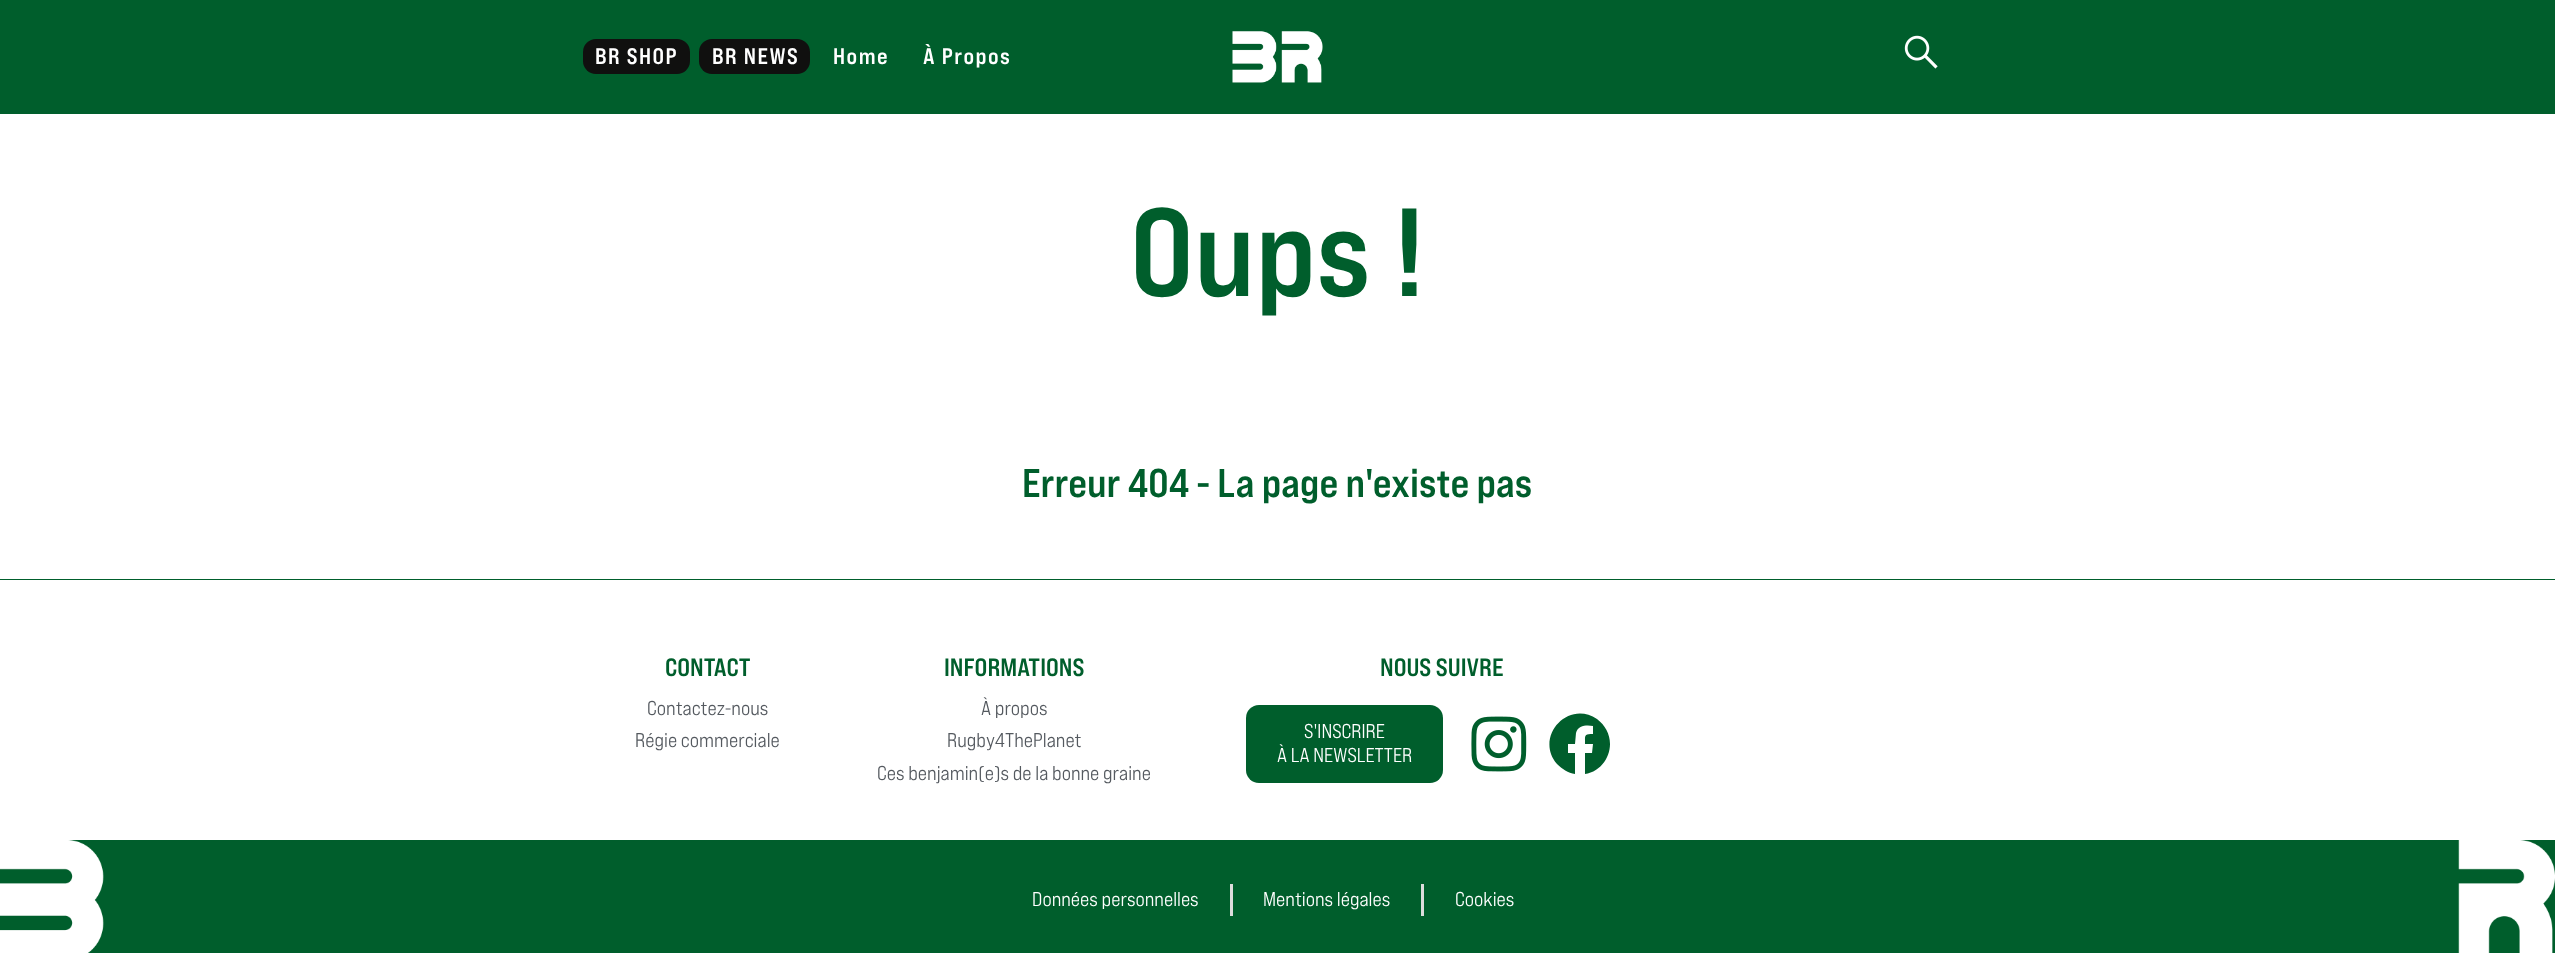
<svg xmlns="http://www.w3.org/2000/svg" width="2555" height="953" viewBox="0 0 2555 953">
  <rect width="100%" height="100%" fill="#fff"/>
  <path d="M0 0h2555v114H0z" fill="#005e2c"/>
  <rect x="583" y="39" width="107" height="35" rx="13" fill="#10100f"/>
  <rect x="699" y="39" width="111" height="35" rx="13" fill="#10100f"/>
  <image x="1232" y="31" width="91" height="52" href="img/1.png"/>
  <image x="1904" y="35" width="34" height="34" href="img/2.png"/>
  <path d="M0 579h2555v1H0z" fill="#005e2c"/>
  <rect x="1246" y="705" width="197" height="78" rx="13" fill="#005e2c"/>
  <image x="1471" y="716" width="56" height="56" href="img/3.png"/>
  <path d="M1610 744C1610 759 1599 772 1585 774V753H1592L1593 744H1585C1585 735 1584 734 1593 734V726C1587 725 1578 725 1576 733L1575 744H1568V753H1575V774C1568 773 1562 769 1557 764C1534 737 1568 699 1597 719C1605 725 1610 734 1610 744Z" fill="#005e2c"/>
  <path d="M0 840h2555v113H0z" fill="#005e2c"/>
  <image x="2458" y="840" width="97" height="113" href="img/4.png"/>
  <image x="0" y="840" width="104" height="113" href="img/5.png"/>
  <path d="M1230 884h3v32H1230z" fill="#ddd"/>
  <path d="M1421 884h3v32H1421z" fill="#ddd"/>
  <g font-family="Bebas Neue" font-size="22.5" font-weight="bold" letter-spacing="1.5" fill="#fff">
    <text x="595" y="64">BR SHOP</text>
    <text x="712" y="64">BR NEWS</text>
    <text x="833" y="64">Home</text>
    <text x="923" y="64">À Propos</text>
  </g>
  <text x="1130" y="296" font-family="Bebas Neue" font-size="125" font-weight="bold" fill="#005e2c">Oups !</text>
  <text x="1022" y="497" font-family="Bebas Neue" font-size="40" font-weight="bold" fill="#005e2c">Erreur 404 - La page n'existe pas</text>
  <text x="665" y="676" font-family="Bebas Neue" font-size="25" font-weight="bold" fill="#005e2c">CONTACT</text>
  <g font-family="Bebas Neue" font-size="20" fill="#54595f">
    <text x="647" y="715">Contactez-nous</text>
    <text x="635" y="747">Régie commerciale</text>
  </g>
  <text x="944" y="676" font-family="Bebas Neue" font-size="25" font-weight="bold" fill="#005e2c">INFORMATIONS</text>
  <g font-family="Bebas Neue" font-size="20" fill="#54595f">
    <text x="981" y="715">À propos</text>
    <text x="947" y="747">Rugby4ThePlanet</text>
    <text x="877" y="780">Ces benjamin(e)s de la bonne graine</text>
  </g>
  <text x="1380" y="676" font-family="Bebas Neue" font-size="25" font-weight="bold" fill="#005e2c">NOUS SUIVRE</text>
  <g font-family="Bebas Neue" font-size="20" fill="#fff">
    <text x="1304" y="738">S'INSCRIRE</text>
    <text x="1277" y="762">À LA NEWSLETTER</text>
    <text x="1032" y="906">Données personnelles</text>
    <text x="1263" y="906">Mentions légales</text>
    <text x="1455" y="906">Cookies</text>
  </g>
</svg>
